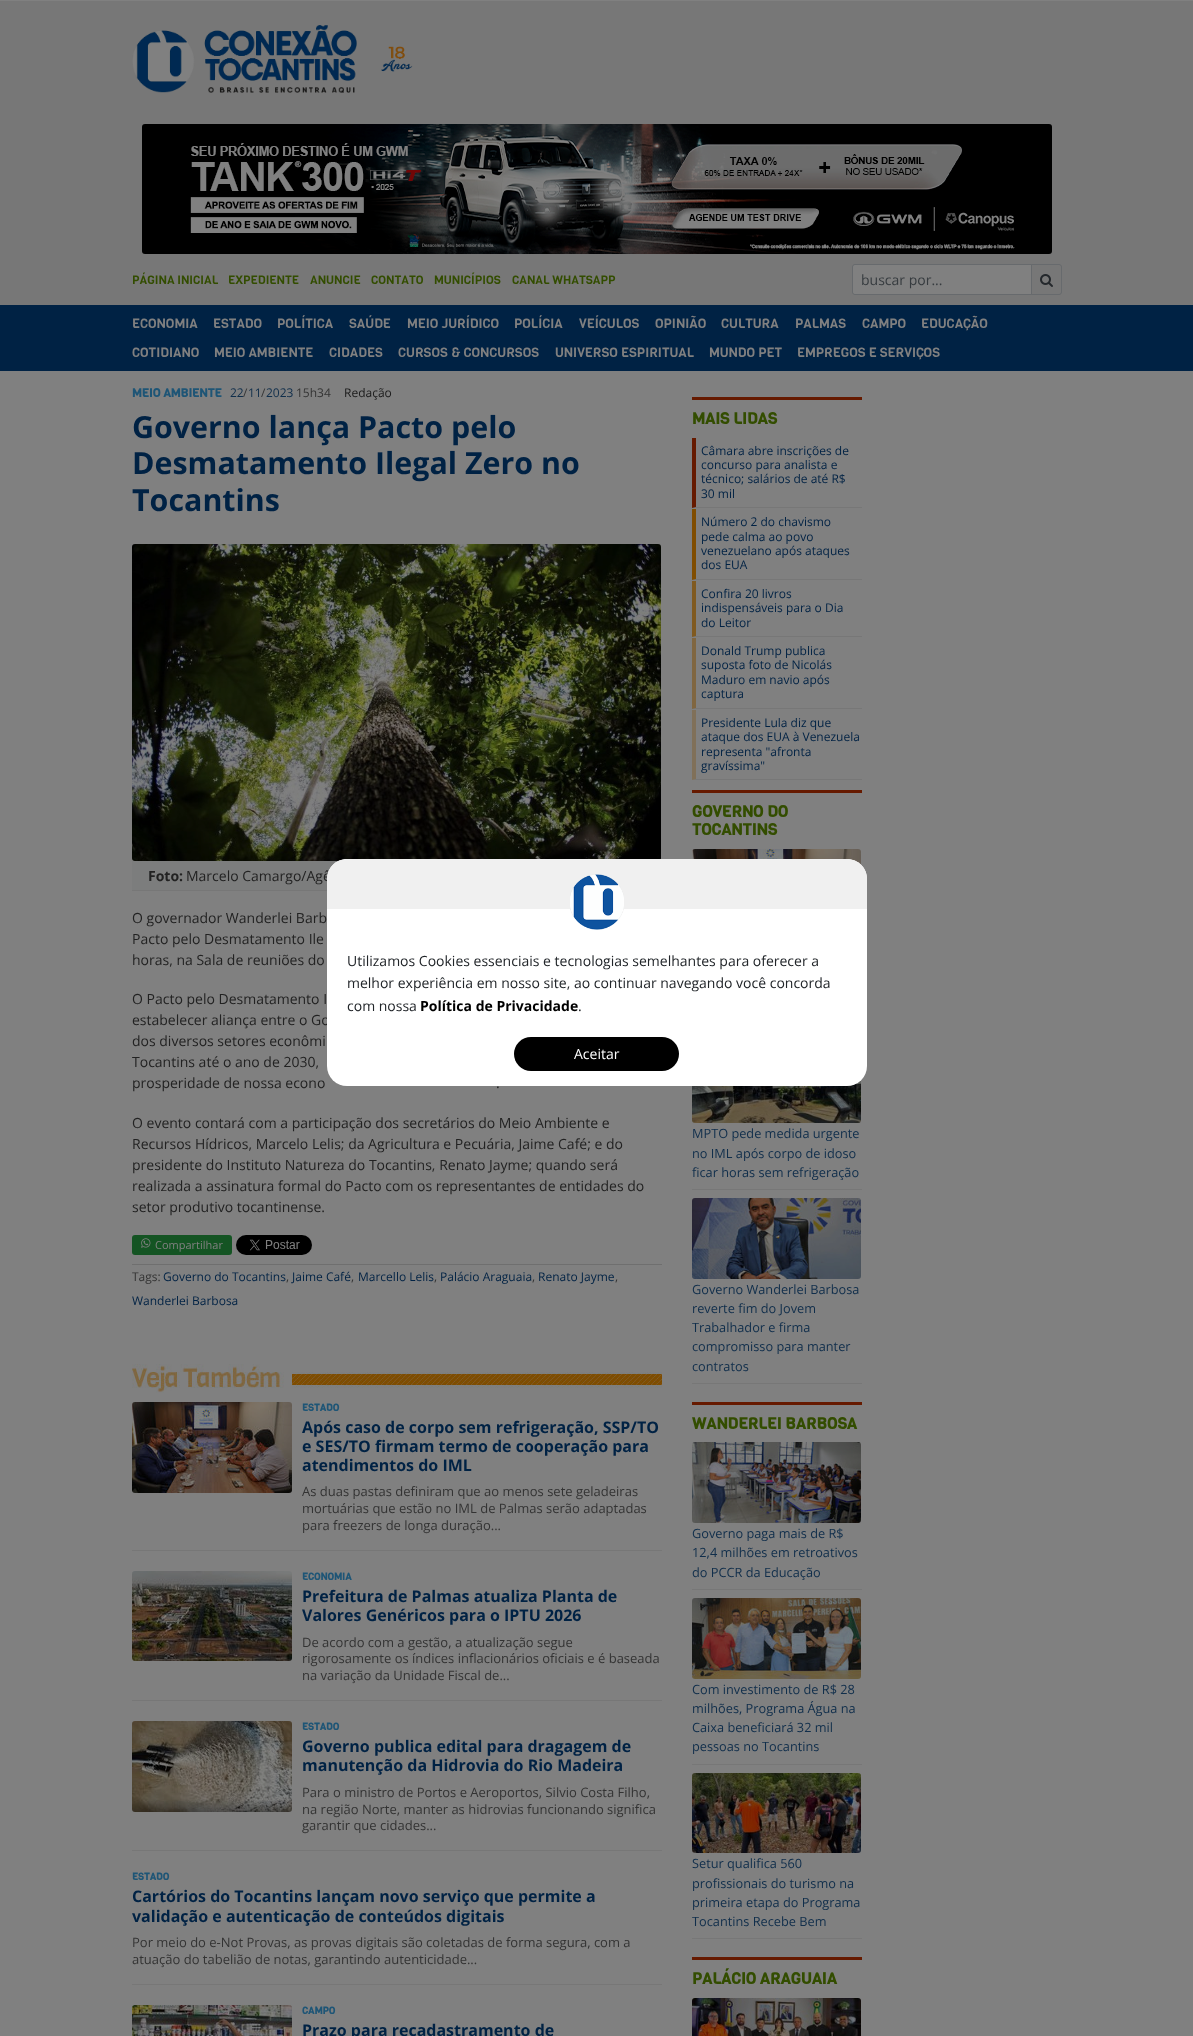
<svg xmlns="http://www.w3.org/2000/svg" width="1193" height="2036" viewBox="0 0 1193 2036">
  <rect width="100%" height="100%" fill="#808080"/>
  <path d="M0 1h1193v304H0z" fill="#777"/>
  <image x="132" y="25" width="281" height="68" href="img/1.png"/>
  <image x="142" y="124" width="910" height="130" href="img/2.png"/>
  <path d="M1031.5 264.5H1059C1060.5 264.5 1061.5 265.5 1061.5 267V292C1061.5 293.5 1060.5 294.5 1059 294.5H1031.5Z" fill="none" stroke="#676a6d"/>
  <path d="M855 264.5H1031.5V294.5H855C853.5 294.5 852.5 293.5 852.5 292V267C852.5 265.5 853.5 264.5 855 264.5Z" fill="#808080" stroke="#676a6d"/>
  <image x="1040" y="274" width="13" height="13" href="img/3.png"/>
  <path d="M0 305h1193v66H0z" fill="#024"/>
  <image x="132" y="544" width="529" height="317" href="img/4.png"/>
  <path d="M132 861h207v29H132z" fill="#7c7d7d"/>
  <path d="M132 890h195v1H132z" fill="#777"/>
  <rect x="132" y="1235" width="100" height="20" rx="3" fill="#145423"/>
  <image x="141" y="1238" width="10" height="10" href="img/5.png"/>
  <image x="236" y="1235" width="76" height="20" href="img/6.png"/>
  <path d="M132 1264h530v1H132z" fill="#6f6f6f"/>
  <image x="132" y="1364" width="530" height="29" href="img/7.png"/>
  <path d="M132 1550h530v1H132z" fill="#777"/>
  <image x="132" y="1402" width="160" height="91" href="img/8.png"/>
  <path d="M132 1700h530v1H132z" fill="#777"/>
  <image x="132" y="1571" width="160" height="90" href="img/9.png"/>
  <path d="M132 1850h530v1H132z" fill="#777"/>
  <image x="132" y="1721" width="160" height="91" href="img/10.png"/>
  <path d="M132 1984h530v1H132z" fill="#777"/>
  <image x="132" y="2005" width="160" height="31" href="img/11.png"/>
  <path d="M692 397h170v3H692z" fill="#661a00"/>
  <path d="M862 508H692L696 507H862Z" fill="#777"/>
  <path d="M692 508V438H696V507Z" fill="#661a00"/>
  <path d="M862 580H692L696 579H862Z" fill="#777"/>
  <path d="M692 580V509H696V579Z" fill="#804d00"/>
  <path d="M862 637H692L696 636H862Z" fill="#777"/>
  <path d="M692 637V581H696V636Z" fill="#805a20"/>
  <path d="M862 709H692L696 708H862Z" fill="#777"/>
  <path d="M692 709V638H696V708Z" fill="#806640"/>
  <path d="M862 780H692L696 779H862Z" fill="#777"/>
  <path d="M692 780V710H696V779Z" fill="#807059"/>
  <path d="M692 790h170v3H692z" fill="#661a00"/>
  <image x="692" y="849" width="169" height="16" href="img/12.png"/>
  <image x="692" y="1080" width="169" height="43" href="img/13.png"/>
  <path d="M692 1189h170v1H692z" fill="#777"/>
  <image x="692" y="1198" width="169" height="81" href="img/14.png"/>
  <path d="M692 1383h170v1H692z" fill="#777"/>
  <path d="M692 1402h170v3H692z" fill="#661a00"/>
  <image x="692" y="1442" width="169" height="81" href="img/15.png"/>
  <path d="M692 1589h170v1H692z" fill="#777"/>
  <image x="692" y="1598" width="169" height="81" href="img/16.png"/>
  <path d="M692 1764h170v1H692z" fill="#777"/>
  <image x="692" y="1773" width="169" height="80" href="img/17.png"/>
  <path d="M692 1938h170v1H692z" fill="#777"/>
  <path d="M692 1957h170v3H692z" fill="#661a00"/>
  <image x="692" y="1998" width="169" height="38" href="img/18.png"/>
  <g font-family="Viga" font-size="12" fill="#334d00">
    <text x="132" y="284">PÁGINA INICIAL</text>
    <text x="228" y="284">EXPEDIENTE</text>
    <text x="310" y="284">ANUNCIE</text>
    <text x="371" y="284">CONTATO</text>
    <text x="434" y="284">MUNICÍPIOS</text>
    <text x="512" y="284">CANAL WHATSAPP</text>
  </g>
  <text x="861" y="285" font-family="Open Sans" font-size="14" fill="#363b3f">buscar por...</text>
  <g font-family="Viga" font-size="13.25" fill="#808080">
    <text x="132" y="328">ECONOMIA</text>
    <text x="213" y="328">ESTADO</text>
    <text x="277" y="328">POLÍTICA</text>
    <text x="349" y="328">SAÚDE</text>
    <text x="407" y="328">MEIO JURÍDICO</text>
    <text x="514" y="328">POLÍCIA</text>
    <text x="579" y="328">VEÍCULOS</text>
    <text x="655" y="328">OPINIÃO</text>
    <text x="721" y="328">CULTURA</text>
    <text x="795" y="328">PALMAS</text>
    <text x="862" y="328">CAMPO</text>
    <text x="921" y="328">EDUCAÇÃO</text>
    <text x="132" y="357">COTIDIANO</text>
    <text x="214" y="357">MEIO AMBIENTE</text>
    <text x="329" y="357">CIDADES</text>
    <text x="398" y="357">CURSOS &amp; CONCURSOS</text>
    <text x="555" y="357">UNIVERSO ESPIRITUAL</text>
    <text x="709" y="357">MUNDO PET</text>
    <text x="797" y="357">EMPREGOS E SERVIÇOS</text>
  </g>
  <text x="132" y="397" font-family="Viga" font-size="12" font-weight="bold" fill="#1e5576">MEIO AMBIENTE</text>
  <text x="230" y="397" font-family="Open Sans" font-size="12" fill="#102e4b">22</text>
  <text x="243" y="397" font-family="Open Sans" font-size="12" fill="#333">/</text>
  <text x="248" y="397" font-family="Open Sans" font-size="12" fill="#102e4b">11</text>
  <text x="261" y="397" font-family="Open Sans" font-size="12" fill="#333">/</text>
  <text x="266" y="397" font-family="Open Sans" font-size="12" fill="#102e4b">2023</text>
  <text x="296" y="397" font-family="Open Sans" font-size="12" fill="#333">15h34</text>
  <text x="344" y="397" font-family="Open Sans" font-size="12" fill="#1a1a1a">Redação</text>
  <g font-family="Open Sans" font-size="30.4" font-weight="bold" fill="#024">
    <text x="132" y="438">Governo lança Pacto pelo</text>
    <text x="132" y="474">Desmatamento Ilegal Zero no</text>
    <text x="132" y="511">Tocantins</text>
  </g>
  <text x="148" y="881" font-family="Open Sans" font-size="14" font-weight="bold" fill="#222">Foto:</text>
  <g font-family="Open Sans" font-size="14" fill="#222">
    <text x="186" y="881">Marcelo Camargo/Agê</text>
    <text x="132" y="923">O governador Wanderlei Barb</text>
    <text x="132" y="944">Pacto pelo Desmatamento Ile</text>
    <text x="132" y="965">horas, na Sala de reuniões do</text>
    <text x="132" y="1004">O Pacto pelo Desmatamento I</text>
    <text x="132" y="1025">estabelecer aliança entre o Go</text>
    <text x="132" y="1046">dos diversos setores econômi</text>
    <text x="132" y="1067">Tocantins até o ano de 2030,</text>
    <text x="132" y="1088">prosperidade de nossa econo</text>
    <text x="496" y="1088">.</text>
    <text x="132" y="1128">O evento contará com a participação dos secretários do Meio Ambiente e</text>
    <text x="132" y="1149">Recursos Hídricos, Marcelo Lelis; da Agricultura e Pecuária, Jaime Café; e do</text>
    <text x="132" y="1170">presidente do Instituto Natureza do Tocantins, Renato Jayme; quando será</text>
    <text x="132" y="1191">realizada a assinatura formal do Pacto com os representantes de entidades do</text>
    <text x="132" y="1212">setor produtivo tocantinense.</text>
  </g>
  <text x="155" y="1249" font-family="Open Sans" font-size="11" fill="#808080">Compartilhar</text>
  <text x="132" y="1281" font-family="Open Sans" font-size="12" fill="#333">Tags:</text>
  <text x="163" y="1281" font-family="Open Sans" font-size="12" fill="#024">Governo do Tocantins</text>
  <text x="286" y="1281" font-family="Open Sans" font-size="12" fill="#333">,</text>
  <text x="292" y="1281" font-family="Open Sans" font-size="12" fill="#024">Jaime Café</text>
  <text x="351" y="1281" font-family="Open Sans" font-size="12" fill="#333">,</text>
  <text x="358" y="1281" font-family="Open Sans" font-size="12" fill="#024">Marcello Lelis</text>
  <text x="434" y="1281" font-family="Open Sans" font-size="12" fill="#333">,</text>
  <text x="440" y="1281" font-family="Open Sans" font-size="12" fill="#024">Palácio Araguaia</text>
  <text x="532" y="1281" font-family="Open Sans" font-size="12" fill="#333">,</text>
  <text x="538" y="1281" font-family="Open Sans" font-size="12" fill="#024">Renato Jayme</text>
  <text x="615" y="1281" font-family="Open Sans" font-size="12" fill="#333">,</text>
  <text x="132" y="1305" font-family="Open Sans" font-size="12" fill="#024">Wanderlei Barbosa</text>
  <text x="302" y="1411" font-family="Viga" font-size="10" font-weight="bold" fill="#1e5576">ESTADO</text>
  <g font-family="Open Sans" font-size="16" font-weight="bold" fill="#024">
    <text x="302" y="1433">Após caso de corpo sem refrigeração, SSP/TO</text>
    <text x="302" y="1452">e SES/TO firmam termo de cooperação para</text>
    <text x="302" y="1471">atendimentos do IML</text>
  </g>
  <g font-family="Open Sans" font-size="13" fill="#333">
    <text x="302" y="1496">As duas pastas definiram que ao menos sete geladeiras</text>
    <text x="302" y="1513">mortuárias que estão no IML de Palmas serão adaptadas</text>
    <text x="302" y="1530">para freezers de longa duração...</text>
  </g>
  <text x="302" y="1580" font-family="Viga" font-size="10" font-weight="bold" fill="#1e5576">ECONOMIA</text>
  <g font-family="Open Sans" font-size="16" font-weight="bold" fill="#024">
    <text x="302" y="1602">Prefeitura de Palmas atualiza Planta de</text>
    <text x="302" y="1621">Valores Genéricos para o IPTU 2026</text>
  </g>
  <g font-family="Open Sans" font-size="13" fill="#333">
    <text x="302" y="1647">De acordo com a gestão, a atualização segue</text>
    <text x="302" y="1663">rigorosamente os índices inflacionários oficiais e é baseada</text>
    <text x="302" y="1680">na variação da Unidade Fiscal de...</text>
  </g>
  <text x="302" y="1730" font-family="Viga" font-size="10" font-weight="bold" fill="#1e5576">ESTADO</text>
  <g font-family="Open Sans" font-size="16" font-weight="bold" fill="#024">
    <text x="302" y="1752">Governo publica edital para dragagem de</text>
    <text x="302" y="1771">manutenção da Hidrovia do Rio Madeira</text>
  </g>
  <g font-family="Open Sans" font-size="13" fill="#333">
    <text x="302" y="1797">Para o ministro de Portos e Aeroportos, Silvio Costa Filho,</text>
    <text x="302" y="1814">na região Norte, manter as hidrovias funcionando significa</text>
    <text x="302" y="1830">garantir que cidades...</text>
  </g>
  <text x="132" y="1880" font-family="Viga" font-size="10" font-weight="bold" fill="#1e5576">ESTADO</text>
  <g font-family="Open Sans" font-size="16" font-weight="bold" fill="#024">
    <text x="132" y="1902">Cartórios do Tocantins lançam novo serviço que permite a</text>
    <text x="132" y="1922">validação e autenticação de conteúdos digitais</text>
  </g>
  <g font-family="Open Sans" font-size="13" fill="#333">
    <text x="132" y="1947">Por meio do e-Not Provas, as provas digitais são coletadas de forma segura, com a</text>
    <text x="132" y="1964">atuação do tabelião de notas, garantindo autenticidade...</text>
  </g>
  <text x="302" y="2014" font-family="Viga" font-size="10" font-weight="bold" fill="#1e5576">CAMPO</text>
  <text x="302" y="2036" font-family="Open Sans" font-size="16" font-weight="bold" fill="#024">Prazo para recadastramento de</text>
  <text x="692" y="424" font-family="Viga" font-size="16" font-weight="bold" fill="#334d00">MAIS LIDAS</text>
  <g font-family="Open Sans" font-size="12" fill="#024">
    <text x="701" y="455">Câmara abre inscrições de</text>
    <text x="701" y="469">concurso para analista e</text>
    <text x="701" y="483">técnico; salários de até R$</text>
    <text x="701" y="498">30 mil</text>
    <text x="701" y="526">Número 2 do chavismo</text>
    <text x="701" y="541">pede calma ao povo</text>
    <text x="701" y="555">venezuelano após ataques</text>
    <text x="701" y="569">dos EUA</text>
    <text x="701" y="598">Confira 20 livros</text>
    <text x="701" y="612">indispensáveis para o Dia</text>
    <text x="701" y="627">do Leitor</text>
    <text x="701" y="655">Donald Trump publica</text>
    <text x="701" y="669">suposta foto de Nicolás</text>
    <text x="701" y="684">Maduro em navio após</text>
    <text x="701" y="698">captura</text>
    <text x="701" y="727">Presidente Lula diz que</text>
    <text x="701" y="741">ataque dos EUA à Venezuela</text>
    <text x="701" y="756">representa "afronta</text>
    <text x="701" y="770">gravíssima"</text>
  </g>
  <g font-family="Viga" font-size="16" font-weight="bold" fill="#334d00">
    <text x="692" y="817">GOVERNO DO</text>
    <text x="692" y="835">TOCANTINS</text>
  </g>
  <g font-family="Open Sans" font-size="12.75" fill="#102e4b">
    <text x="692" y="1138">MPTO pede medida urgente</text>
    <text x="692" y="1158">no IML após corpo de idoso</text>
    <text x="692" y="1177">ficar horas sem refrigeração</text>
    <text x="692" y="1294">Governo Wanderlei Barbosa</text>
    <text x="692" y="1313">reverte fim do Jovem</text>
    <text x="692" y="1332">Trabalhador e firma</text>
    <text x="692" y="1351">compromisso para manter</text>
    <text x="692" y="1371">contratos</text>
  </g>
  <text x="692" y="1429" font-family="Viga" font-size="16" font-weight="bold" fill="#334d00">WANDERLEI BARBOSA</text>
  <g font-family="Open Sans" font-size="12.75" fill="#102e4b">
    <text x="692" y="1538">Governo paga mais de R$</text>
    <text x="692" y="1557">12,4 milhões em retroativos</text>
    <text x="692" y="1577">do PCCR da Educação</text>
    <text x="692" y="1694">Com investimento de R$ 28</text>
    <text x="692" y="1713">milhões, Programa Água na</text>
    <text x="692" y="1732">Caixa beneficiará 32 mil</text>
    <text x="692" y="1751">pessoas no Tocantins</text>
    <text x="692" y="1868">Setur qualifica 560</text>
    <text x="692" y="1888">profissionais do turismo na</text>
    <text x="692" y="1907">primeira etapa do Programa</text>
    <text x="692" y="1926">Tocantins Recebe Bem</text>
  </g>
  <text x="692" y="1984" font-family="Viga" font-size="16" font-weight="bold" fill="#334d00">PALÁCIO ARAGUAIA</text>
  <rect x="327" y="859" width="540" height="227" rx="20" fill="#fff"/>
  <path d="M347 859H847C858 859 867 868 867 879V909H327V879C327 868 336 859 347 859Z" fill="#f0f0f0"/>
  <image x="570" y="874" width="54" height="56" href="img/19.png"/>
  <g font-family="Open Sans" font-size="14" fill="#212529">
    <text x="347" y="966">Utilizamos Cookies essenciais e tecnologias semelhantes para oferecer a</text>
    <text x="347" y="988">melhor experiência em nosso site, ao continuar navegando você concorda</text>
    <text x="347" y="1011">com nossa</text>
  </g>
  <text x="420" y="1011" font-family="Open Sans" font-size="14" font-weight="bold" fill="#000">Política de Privacidade</text>
  <text x="578" y="1011" font-family="Open Sans" font-size="14" fill="#212529">.</text>
  <rect x="514" y="1037" width="165" height="34" rx="17" fill="#000"/>
  <text x="574" y="1059" font-family="Open Sans" font-size="14" fill="#fff">Aceitar</text>
</svg>
